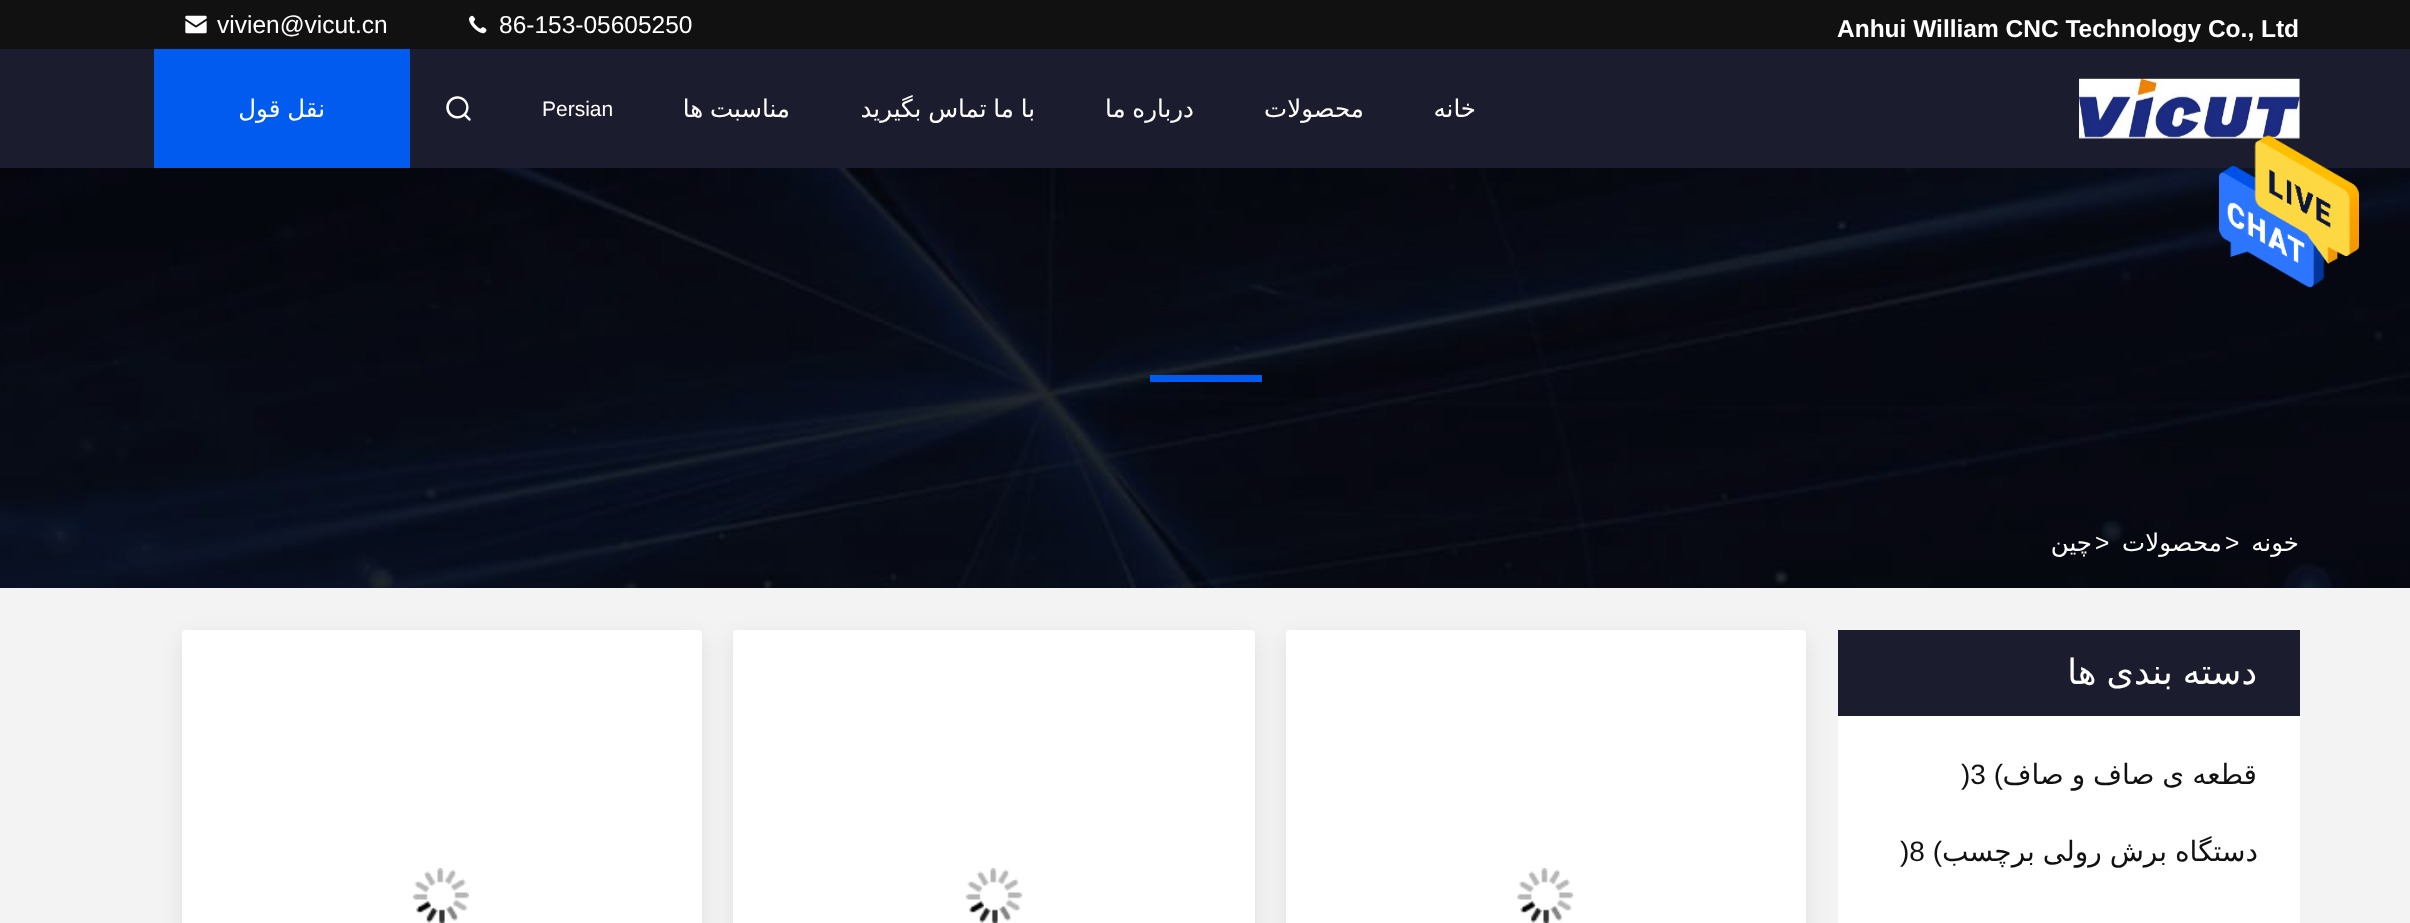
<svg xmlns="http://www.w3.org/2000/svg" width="2410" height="923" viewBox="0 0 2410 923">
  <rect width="100%" height="100%" fill="#f3f3f3"/>
  <path d="M0 0h2410v49H0z" fill="#111"/>
  <image x="469" y="15" width="18" height="19" href="img/1.png"/>
  <image x="185" y="15" width="22" height="19" href="img/2.png"/>
  <path d="M0 49h2410v119H0z" fill="#1b1d2e"/>
  <image x="2079" y="78" width="221" height="61" href="img/3.png"/>
  <image x="446" y="96" width="25" height="25" href="img/4.png"/>
  <path d="M154 49h256v119H154z" fill="#005bee"/>
  <image x="0" y="168" width="2410" height="420" href="img/6.png"/>
  <image x="2219" y="135" width="140" height="153" href="img/5.png"/>
  <path d="M1150 375h112v7H1150z" fill="#005bee"/>
  <rect x="1286" y="637" width="520" height="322" rx="4" fill="#00000014" filter="blur(10.5px)"/>
  <path d="M1838 630h462v86H1838z" fill="#1b1d2e"/>
  <path d="M1838 716h462v207H1838z" fill="#fff"/>
  <rect x="1286" y="630" width="520" height="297" rx="4" fill="#fff"/>
  <image x="1517" y="868" width="57" height="55" href="img/7.png"/>
  <rect x="733" y="637" width="522" height="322" rx="4" fill="#00000014" filter="blur(10.5px)"/>
  <rect x="733" y="630" width="522" height="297" rx="4" fill="#fff"/>
  <image x="966" y="868" width="56" height="55" href="img/8.png"/>
  <rect x="182" y="637" width="520" height="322" rx="4" fill="#00000014" filter="blur(10.5px)"/>
  <rect x="182" y="630" width="520" height="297" rx="4" fill="#fff"/>
  <image x="413" y="868" width="56" height="55" href="img/8.png"/>
  <text x="1837" y="37" font-family="Liberation Sans" font-size="24.5" font-weight="bold" fill="#fff">Anhui William CNC Technology Co., Ltd</text>
  <g font-family="Liberation Sans" font-size="24.5" fill="#fff">
    <text x="499" y="33">86-153-05605250</text>
    <text x="217" y="33">vivien@vicut.cn</text>
  </g>
  <g font-family="DejaVu Sans" font-size="24.5" direction="rtl" fill="#fff">
    <text x="1476" y="117">خانه</text>
    <text x="1364" y="117">محصولات</text>
    <text x="1194" y="117" word-spacing="-1">درباره ما</text>
    <text x="1035" y="117" word-spacing="-1">با ما تماس بگیرید</text>
    <text x="790" y="117" word-spacing="-1">مناسبت ها</text>
  </g>
  <text x="542" y="116" font-family="Liberation Sans" font-size="21" fill="#fff">Persian</text>
  <g font-family="DejaVu Sans" font-size="24.5" direction="rtl" fill="#fff">
    <text x="325" y="117" word-spacing="-1">نقل قول</text>
    <text x="2299" y="551">خونه</text>
  </g>
  <text x="2225" y="551" font-family="Liberation Sans" font-size="24.5" fill="#fff">&gt;</text>
  <text x="2222" y="551" font-family="DejaVu Sans" font-size="24.5" direction="rtl" fill="#fff">محصولات</text>
  <text x="2095" y="551" font-family="Liberation Sans" font-size="24.5" fill="#fff">&gt;</text>
  <text x="2092" y="551" font-family="DejaVu Sans" font-size="24.5" direction="rtl" fill="#fff">چین</text>
  <text x="2257" y="684" word-spacing="-1" font-family="DejaVu Sans" font-size="35" direction="rtl" fill="#fff">دسته بندی ها</text>
  <text x="2257" y="784" word-spacing="-1" font-family="DejaVu Sans" font-size="28" direction="rtl" fill="#111">قطعه ی صاف و صاف</text>
  <text x="1961" y="784" font-family="Liberation Sans" font-size="28" fill="#111">)3 (</text>
  <text x="2258" y="861" word-spacing="-1" font-family="DejaVu Sans" font-size="28" direction="rtl" fill="#111">دستگاه برش رولی برچسب</text>
  <text x="1900" y="861" font-family="Liberation Sans" font-size="28" fill="#111">)8 (</text>
</svg>
